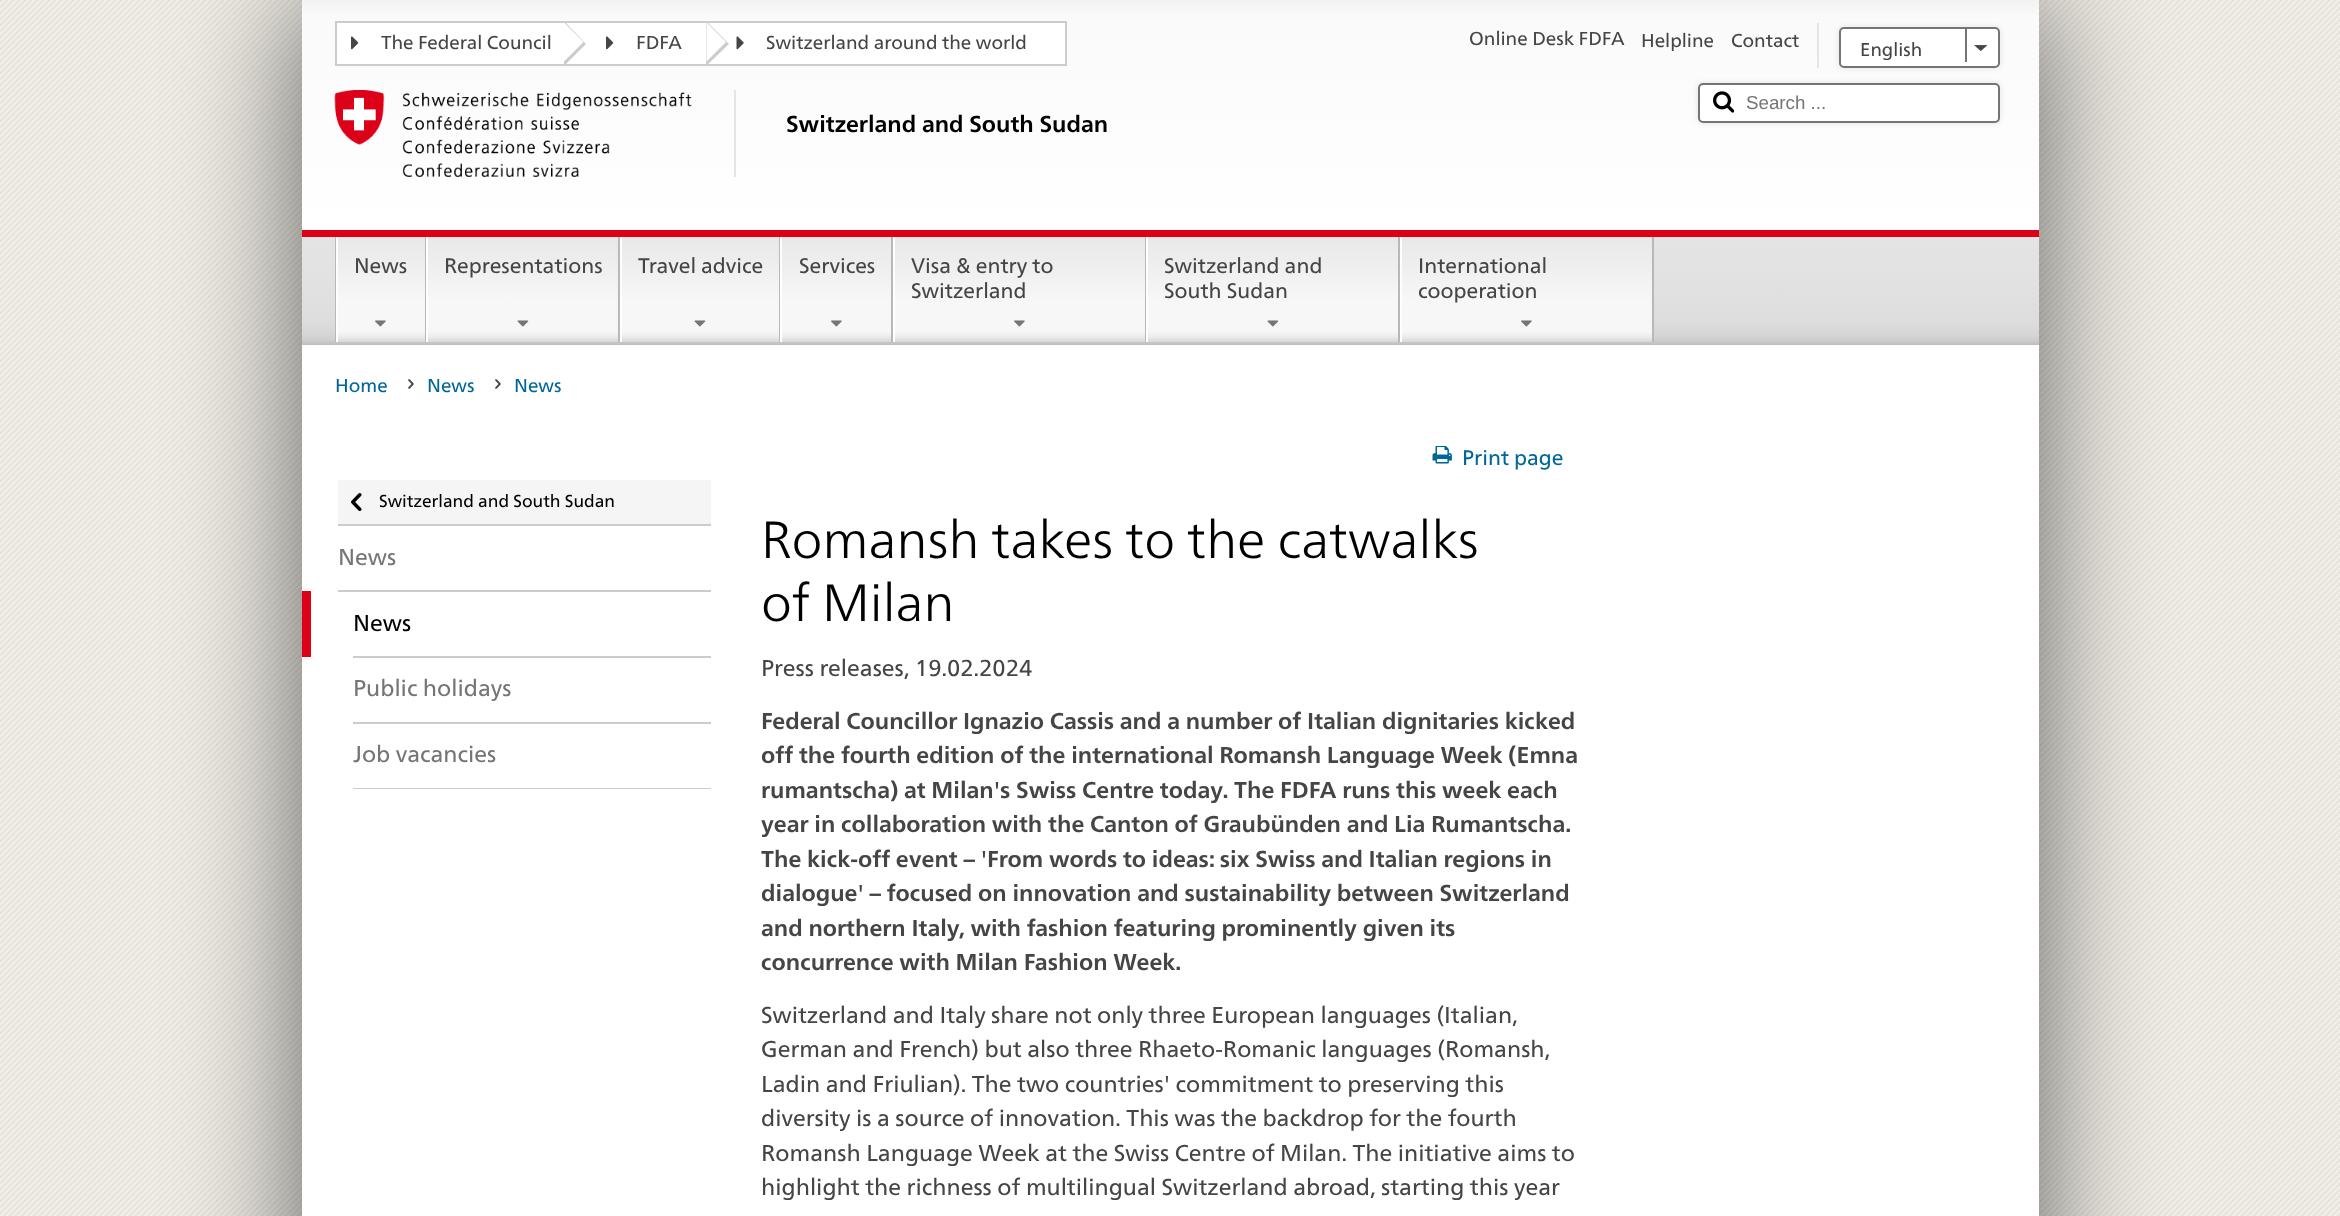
<svg xmlns="http://www.w3.org/2000/svg" width="2340" height="1216" viewBox="0 0 2340 1216">
  <defs>
    <linearGradient id="g1" gradientUnits="userSpaceOnUse" x1="1170" y1="0" x2="1170" y2="230"><stop offset="0" stop-color="#f2f2f2"/><stop offset="0.07" stop-color="#fafafa"/><stop offset="1" stop-color="#fff"/></linearGradient>
    <linearGradient id="g2" gradientUnits="userSpaceOnUse" x1="1170" y1="237" x2="1170" y2="345"><stop offset="0" stop-color="#e4e4e4"/><stop offset="0.39" stop-color="#e2e2e2"/><stop offset="0.79" stop-color="#ddd"/><stop offset="0.91" stop-color="#d5d5d5"/><stop offset="0.95" stop-color="#cfcfcf"/><stop offset="1" stop-color="#bebebe"/></linearGradient>
    <linearGradient id="g3" gradientUnits="userSpaceOnUse" x1="381" y1="237" x2="381" y2="342"><stop offset="0" stop-color="#e8e8e8"/><stop offset="0.61" stop-color="#f7f7f7"/><stop offset="0.89" stop-color="#f7f7f7"/><stop offset="0.91" stop-color="#f5f5f5"/><stop offset="0.95" stop-color="#ececec"/><stop offset="1" stop-color="#d7d7d7"/></linearGradient>
    <linearGradient id="g4" gradientUnits="userSpaceOnUse" x1="523" y1="237" x2="523" y2="342"><stop offset="0" stop-color="#e8e8e8"/><stop offset="0.61" stop-color="#f7f7f7"/><stop offset="0.89" stop-color="#f7f7f7"/><stop offset="0.91" stop-color="#f5f5f5"/><stop offset="0.95" stop-color="#ececec"/><stop offset="1" stop-color="#d7d7d7"/></linearGradient>
    <linearGradient id="g5" gradientUnits="userSpaceOnUse" x1="700" y1="237" x2="700" y2="342"><stop offset="0" stop-color="#e8e8e8"/><stop offset="0.61" stop-color="#f7f7f7"/><stop offset="0.89" stop-color="#f7f7f7"/><stop offset="0.91" stop-color="#f5f5f5"/><stop offset="0.95" stop-color="#ececec"/><stop offset="1" stop-color="#d7d7d7"/></linearGradient>
    <linearGradient id="g6" gradientUnits="userSpaceOnUse" x1="836" y1="237" x2="836" y2="342"><stop offset="0" stop-color="#e8e8e8"/><stop offset="0.61" stop-color="#f7f7f7"/><stop offset="0.89" stop-color="#f7f7f7"/><stop offset="0.91" stop-color="#f5f5f5"/><stop offset="0.95" stop-color="#ececec"/><stop offset="1" stop-color="#d7d7d7"/></linearGradient>
    <linearGradient id="g7" gradientUnits="userSpaceOnUse" x1="1019" y1="237" x2="1019" y2="342"><stop offset="0" stop-color="#e8e8e8"/><stop offset="0.61" stop-color="#f7f7f7"/><stop offset="0.89" stop-color="#f7f7f7"/><stop offset="0.91" stop-color="#f5f5f5"/><stop offset="0.95" stop-color="#ececec"/><stop offset="1" stop-color="#d7d7d7"/></linearGradient>
    <linearGradient id="g8" gradientUnits="userSpaceOnUse" x1="1273" y1="237" x2="1273" y2="342"><stop offset="0" stop-color="#e8e8e8"/><stop offset="0.61" stop-color="#f7f7f7"/><stop offset="0.89" stop-color="#f7f7f7"/><stop offset="0.91" stop-color="#f5f5f5"/><stop offset="0.95" stop-color="#ececec"/><stop offset="1" stop-color="#d7d7d7"/></linearGradient>
    <linearGradient id="g9" gradientUnits="userSpaceOnUse" x1="1526" y1="237" x2="1526" y2="342"><stop offset="0" stop-color="#e8e8e8"/><stop offset="0.61" stop-color="#f7f7f7"/><stop offset="0.89" stop-color="#f7f7f7"/><stop offset="0.91" stop-color="#f5f5f5"/><stop offset="0.95" stop-color="#ececec"/><stop offset="1" stop-color="#d7d7d7"/></linearGradient>
  </defs>
  <rect width="100%" height="100%" fill="#fff"/>
  <image x="0" y="0" width="2340" height="1216" href="img/1.png"/>
  <path d="M302 0h1737v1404H302z" fill="#00000099" filter="blur(62.5px)"/>
  <path d="M302 345h1737v871H302z" fill="#fff"/>
  <path d="M302 0h1737v230H302z" fill="url(#g1)"/>
  <path d="M336 22h730v43H336z" fill="#fff" stroke="#ccc" stroke-width="2"/>
  <path d="M564 66V21L586 44Z" fill="#ccc"/>
  <image x="351" y="36" width="8" height="14" href="img/2.png"/>
  <path d="M564 61.5V22.5L583.5 42Z" fill="#fff"/>
  <path d="M706 66V21L729 44Z" fill="#ccc"/>
  <image x="606" y="36" width="8" height="14" href="img/2.png"/>
  <path d="M706.5 61.5V22.5L726 42Z" fill="#fff"/>
  <image x="736" y="36" width="8" height="14" href="img/3.png"/>
  <path d="M1817 23h2v45H1817z" fill="#e5e5e5"/>
  <rect x="1839" y="27" width="161" height="41" rx="5" fill="#0000001a" filter="blur(3px)"/>
  <rect x="1840" y="28" width="159" height="39" rx="4" fill="#fff" stroke="#757575" stroke-width="2"/>
  <image x="1974" y="45" width="14" height="6" href="img/4.png"/>
  <path d="M1965 27h2v35H1965z" fill="#757575"/>
  <rect x="1698" y="83" width="302" height="40" rx="5" fill="#0000001a" filter="blur(3px)"/>
  <rect x="1699" y="84" width="300" height="38" rx="4" fill="#fff" stroke="#757575" stroke-width="2"/>
  <image x="1713" y="91" width="21" height="22" href="img/5.png"/>
  <image x="334" y="90" width="358" height="87" href="img/6.png"/>
  <path d="M734 90h2v87H734z" fill="#e5e5e5"/>
  <path d="M302 237h1737v108H302z" fill="url(#g2)"/>
  <path d="M302 230h1737v7H302z" fill="#dc0018"/>
  <path d="M335 237h1v105H335z" fill="#b8b8b8"/>
  <path d="M338 237h87v105H338z" fill="url(#g3)"/>
  <path d="M425 237h1v105H425z" fill="#b8b8b8"/>
  <path d="M336 237h2v105H336z" fill="#fff"/>
  <image x="375" y="320" width="11" height="7" href="img/7.png"/>
  <path d="M428 237h190v105H428z" fill="url(#g4)"/>
  <path d="M618 237h2v105H618z" fill="#b8b8b8"/>
  <path d="M426 237h2v105H426z" fill="#fff"/>
  <image x="517" y="320" width="12" height="7" href="img/8.png"/>
  <path d="M622 237h157v105H622z" fill="url(#g5)"/>
  <path d="M779 237h1v105H779z" fill="#b8b8b8"/>
  <path d="M620 237h2v105H620z" fill="#fff"/>
  <image x="694" y="320" width="12" height="7" href="img/8.png"/>
  <path d="M782 237h109v105H782z" fill="url(#g6)"/>
  <path d="M891 237h2v105H891z" fill="#b8b8b8"/>
  <path d="M780 237h2v105H780z" fill="#fff"/>
  <image x="831" y="320" width="11" height="7" href="img/7.png"/>
  <path d="M895 237h250v105H895z" fill="url(#g7)"/>
  <path d="M1145 237h1v105H1145z" fill="#b8b8b8"/>
  <path d="M893 237h2v105H893z" fill="#fff"/>
  <image x="1014" y="320" width="11" height="7" href="img/7.png"/>
  <path d="M1148 237h250v105H1148z" fill="url(#g8)"/>
  <path d="M1398 237h2v105H1398z" fill="#b8b8b8"/>
  <path d="M1146 237h2v105H1146z" fill="#fff"/>
  <image x="1267" y="320" width="12" height="7" href="img/8.png"/>
  <path d="M1402 237h250v105H1402z" fill="url(#g9)"/>
  <path d="M1652 237h2v105H1652z" fill="#b8b8b8"/>
  <path d="M1400 237h2v105H1400z" fill="#fff"/>
  <image x="1521" y="320" width="11" height="7" href="img/7.png"/>
  <image x="408" y="379" width="6" height="10" href="img/9.png"/>
  <image x="495" y="379" width="6" height="10" href="img/9.png"/>
  <path d="M338 480h373v44H338z" fill="#f5f5f5"/>
  <path d="M338 524h373v2H338z" fill="#ccc"/>
  <image x="351" y="493" width="11" height="18" href="img/10.png"/>
  <path d="M338 590h373v2H338z" fill="#ccc"/>
  <path d="M302 591h9v66H302z" fill="#dc0018"/>
  <path d="M353 656h358v2H353z" fill="#ccc"/>
  <path d="M353 722h358v2H353z" fill="#ccc"/>
  <path d="M353 788h358v1H353z" fill="#ccc"/>
  <image x="1432" y="446" width="20" height="18" href="img/11.png"/>
  <g font-family="'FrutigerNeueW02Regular'" font-size="18.75" fill="#454545">
    <text x="381" y="49">The Federal Council</text>
    <text x="636" y="49">FDFA</text>
    <text x="766" y="49">Switzerland around the world</text>
    <text x="1469" y="45">Online Desk FDFA</text>
    <text x="1641" y="47">Helpline</text>
    <text x="1731" y="47">Contact</text>
  </g>
  <text x="1860" y="56" font-family="'FrutigerNeueW02Regular'" font-size="18.5" fill="#454545">English</text>
  <text x="1746" y="109" font-family="Liberation Sans" font-size="18.75" fill="#757575">Search ...</text>
  <text x="786" y="132" font-family="'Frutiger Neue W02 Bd'" font-size="22.95" font-weight="bold" fill="#000">Switzerland and South Sudan</text>
  <g font-family="'FrutigerNeueW02Regular'" font-size="21" fill="#454545">
    <text x="354" y="273">News</text>
    <text x="444" y="273">Representations</text>
    <text x="638" y="273">Travel advice</text>
    <text x="799" y="273">Services</text>
    <text x="911" y="273">Visa &amp; entry to</text>
    <text x="911" y="298">Switzerland</text>
    <text x="1164" y="273">Switzerland and</text>
    <text x="1164" y="298">South Sudan</text>
    <text x="1418" y="273">International</text>
    <text x="1418" y="298">cooperation</text>
  </g>
  <g font-family="'FrutigerNeueW02Regular'" font-size="18.75" fill="#069">
    <text x="335" y="392">Home</text>
    <text x="427" y="392">News</text>
    <text x="514" y="392">News</text>
  </g>
  <text x="379" y="507" font-family="'FrutigerNeueW02Regular'" font-size="17.25" fill="#000">Switzerland and South Sudan</text>
  <text x="338" y="565" font-family="'FrutigerNeueW02Regular'" font-size="22.95" fill="#757575">News</text>
  <text x="353" y="631" font-family="'FrutigerNeueW02Regular'" font-size="22.95" fill="#000">News</text>
  <g font-family="'FrutigerNeueW02Regular'" font-size="22.95" fill="#757575">
    <text x="353" y="696">Public holidays</text>
    <text x="353" y="762">Job vacancies</text>
  </g>
  <text x="1462" y="465" font-family="'FrutigerNeueW02Regular'" font-size="21" fill="#069">Print page</text>
  <g font-family="'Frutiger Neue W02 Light'" font-size="52.25" font-weight="300" fill="#000">
    <text x="761" y="558">Romansh takes to the catwalks</text>
    <text x="761" y="621">of Milan</text>
  </g>
  <text x="761" y="676" font-family="'FrutigerNeueW02Regular'" font-size="22.95" fill="#454545">Press releases, 19.02.2024</text>
  <g font-family="'Frutiger Neue W02 Bd'" font-size="22.95" font-weight="bold" fill="#454545">
    <text x="761" y="729">Federal Councillor Ignazio Cassis and a number of Italian dignitaries kicked</text>
    <text x="761" y="763">off the fourth edition of the international Romansh Language Week (Emna</text>
    <text x="761" y="798">rumantscha) at Milan's Swiss Centre today. The FDFA runs this week each</text>
    <text x="761" y="832">year in collaboration with the Canton of Graubünden and Lia Rumantscha.</text>
    <text x="761" y="867">The kick-off event – 'From words to ideas: six Swiss and Italian regions in</text>
    <text x="761" y="901">dialogue' – focused on innovation and sustainability between Switzerland</text>
    <text x="761" y="936">and northern Italy, with fashion featuring prominently given its</text>
    <text x="761" y="970">concurrence with Milan Fashion Week.</text>
  </g>
  <g font-family="'FrutigerNeueW02Regular'" font-size="22.95" fill="#454545">
    <text x="761" y="1023">Switzerland and Italy share not only three European languages (Italian,</text>
    <text x="761" y="1057">German and French) but also three Rhaeto-Romanic languages (Romansh,</text>
    <text x="761" y="1092">Ladin and Friulian). The two countries' commitment to preserving this</text>
    <text x="761" y="1126">diversity is a source of innovation. This was the backdrop for the fourth</text>
    <text x="761" y="1161">Romansh Language Week at the Swiss Centre of Milan. The initiative aims to</text>
    <text x="761" y="1195">highlight the richness of multilingual Switzerland abroad, starting this year</text>
  </g>
</svg>
